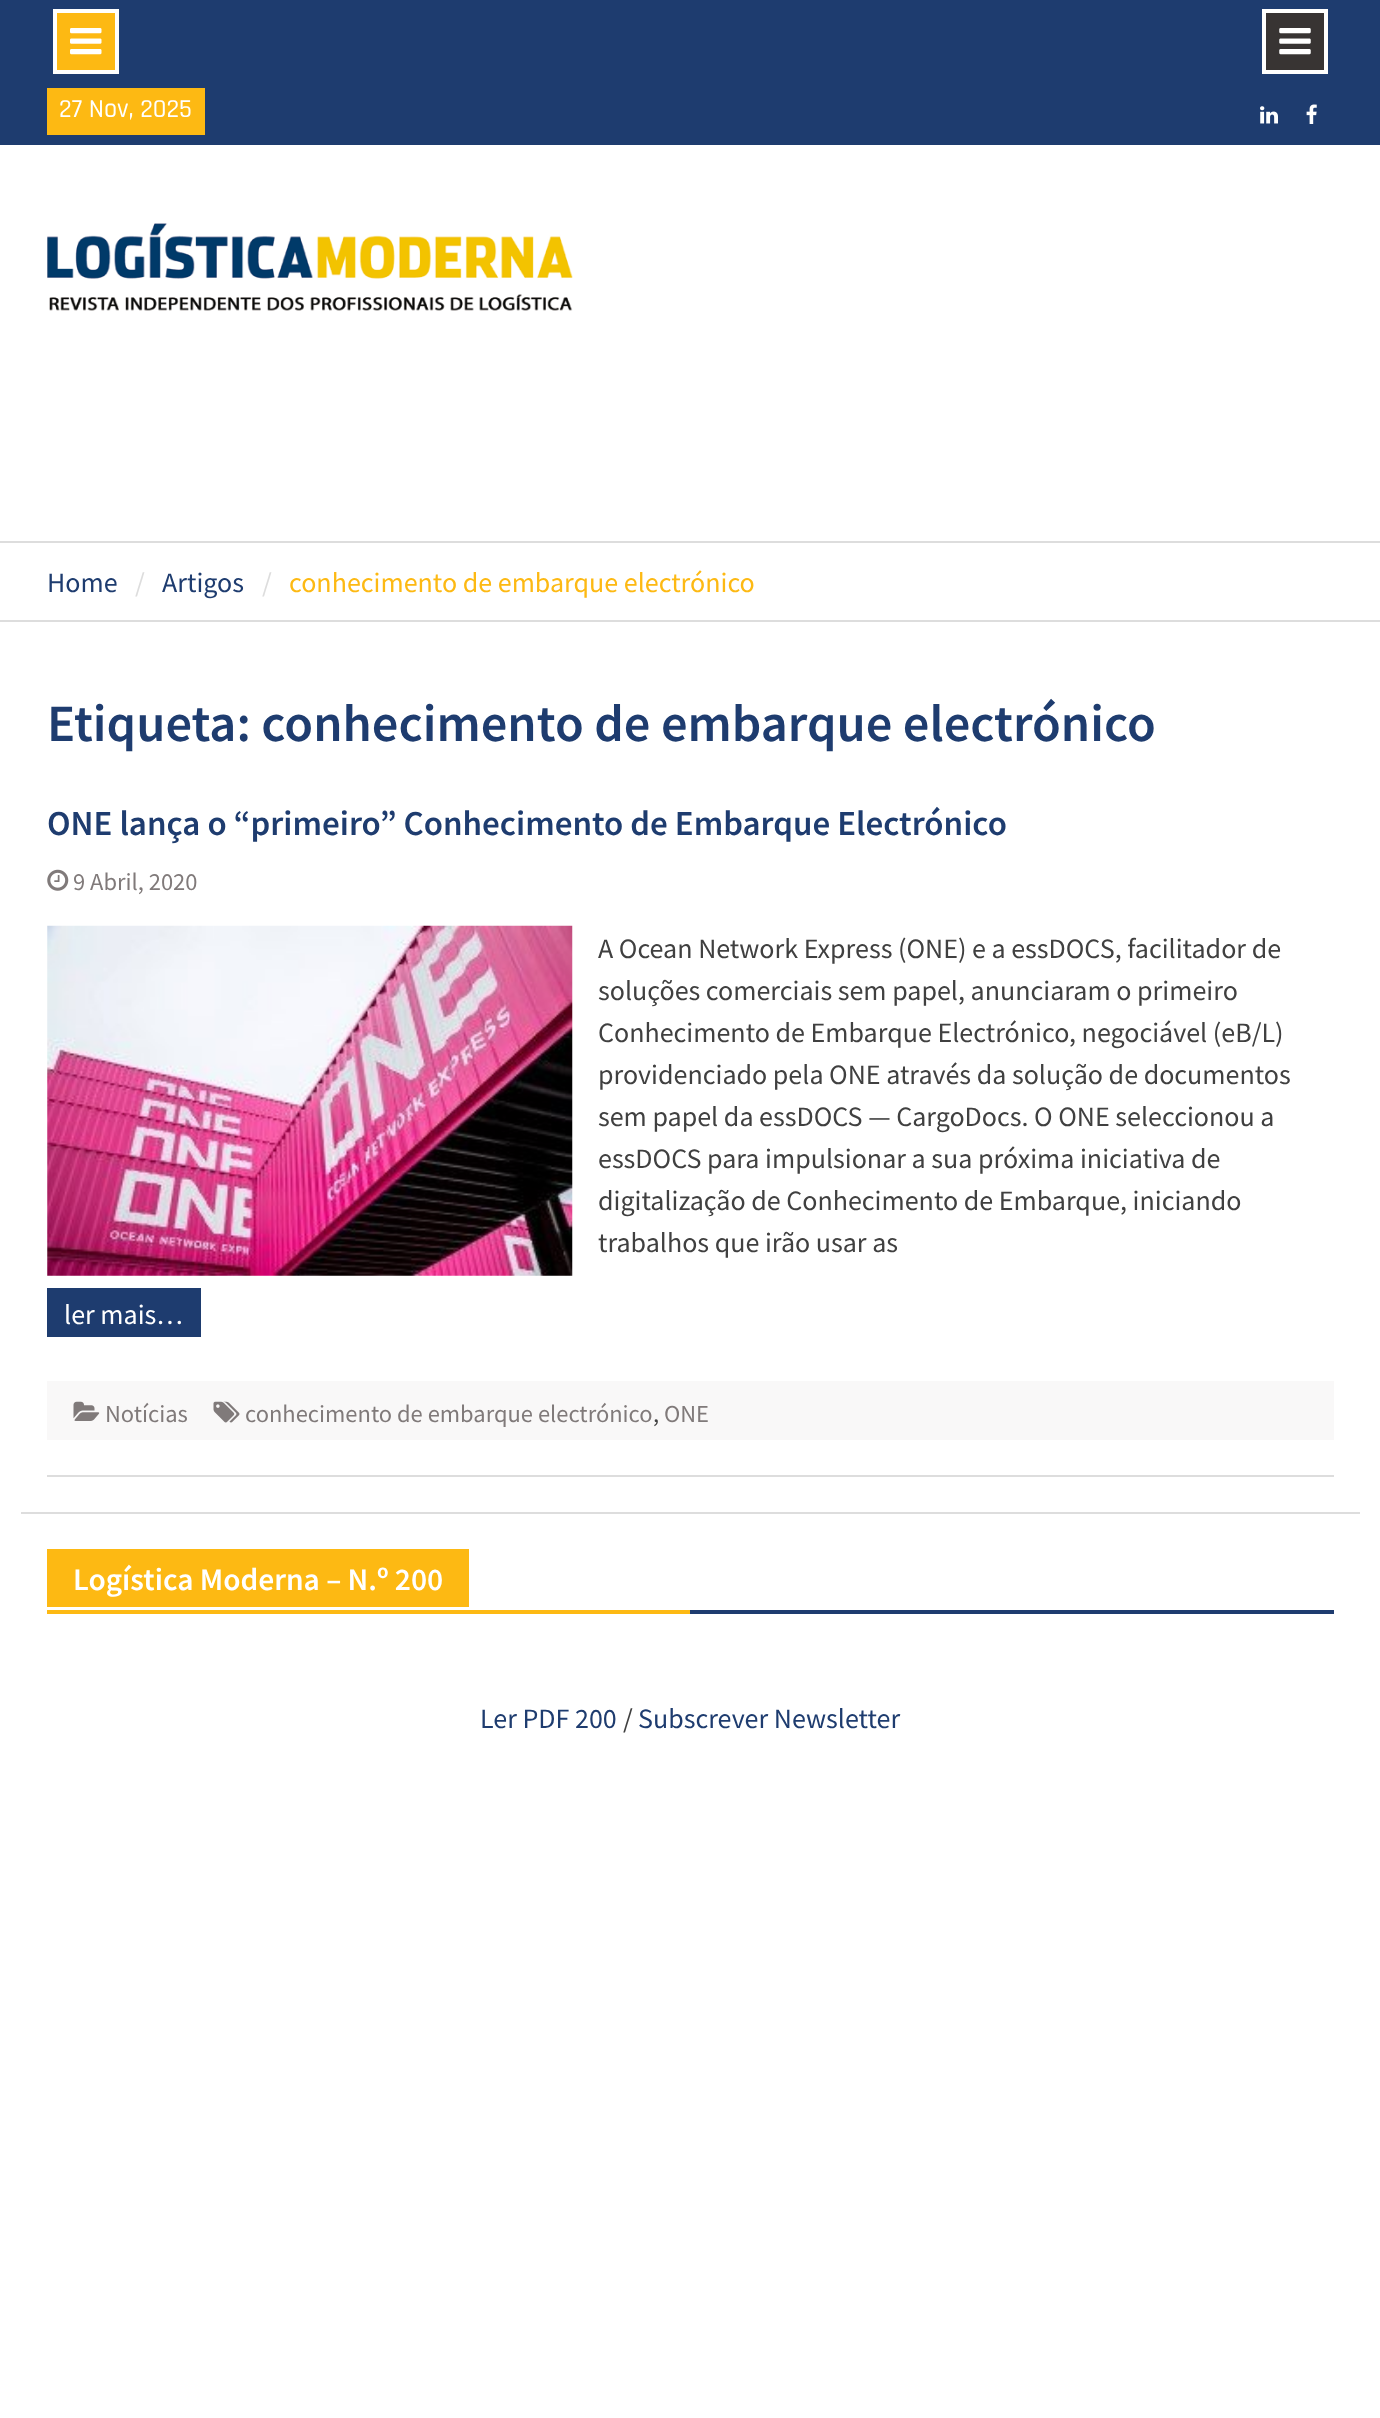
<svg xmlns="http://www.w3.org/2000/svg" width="1380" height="2418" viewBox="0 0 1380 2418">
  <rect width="100%" height="100%" fill="#fff"/>
  <path d="M0 0h1380v145H0z" fill="#1e3c6f"/>
  <path d="M55 11h62v61H55z" fill="#fdb913" stroke="#fffffe" stroke-width="4"/>
  <image x="70" y="28" width="32" height="27" href="img/1.png"/>
  <path d="M1264 11h62v61H1264z" fill="#383433" stroke="#fffffe" stroke-width="4"/>
  <image x="1279" y="28" width="32" height="27" href="img/2.png"/>
  <path d="M47 88h158v47H47z" fill="#fdb913"/>
  <image x="1260" y="106" width="18" height="18" href="img/3.png"/>
  <image x="1306" y="104" width="11" height="20" href="img/4.png"/>
  <path d="M0 541h1380v2H0z" fill="#ddd"/>
  <image x="47" y="223" width="526" height="88" href="img/5.png"/>
  <path d="M0 620h1380v2H0z" fill="#ddd"/>
  <path d="M21 1512h1339v2H21z" fill="#ddd"/>
  <path d="M47 1475h1287v2H47z" fill="#ddd"/>
  <image x="47" y="869" width="22" height="22" href="img/6.png"/>
  <image x="47" y="925" width="526" height="351" href="img/7.png"/>
  <path d="M47 1288h154v49H47z" fill="#1e3c6f"/>
  <path d="M47 1381h1287v59H47z" fill="#f9f8f8"/>
  <image x="73" y="1401" width="27" height="20" href="img/8.png"/>
  <image x="213" y="1401" width="27" height="22" href="img/9.png"/>
  <path d="M690 1610h644v4H690z" fill="#1e3c6f"/>
  <path d="M47 1549h422v58H47z" fill="#fdb913"/>
  <path d="M47 1610h643v4H47z" fill="#fdb913"/>
  <text x="59" y="117" font-family="Rajdhani" font-size="26.25" font-weight="500" fill="#fff">27 Nov, 2025</text>
  <text x="47" y="592" font-family="Source Sans Pro" font-size="28" fill="#1e3c6f">Home</text>
  <text x="135" y="592" font-family="Source Sans Pro" font-size="28" fill="#ddd">/</text>
  <text x="162" y="592" font-family="Source Sans Pro" font-size="28" fill="#1e3c6f">Artigos</text>
  <text x="262" y="592" font-family="Source Sans Pro" font-size="28" fill="#ddd">/</text>
  <text x="289" y="592" font-family="Source Sans Pro" font-size="28" fill="#fdb913">conhecimento de embarque electrónico</text>
  <text x="47" y="741" font-family="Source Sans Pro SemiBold" font-size="52.5" font-weight="600" fill="#1e3c6f">Etiqueta: conhecimento de embarque electrónico</text>
  <text x="47" y="835" font-family="Source Sans Pro SemiBold" font-size="35" font-weight="600" fill="#1e3c6f">ONE lança o “primeiro” Conhecimento de Embarque Electrónico</text>
  <text x="73" y="890" font-family="Source Sans Pro" font-size="24.5" fill="#807a7a">9 Abril, 2020</text>
  <g font-family="Source Sans Pro" font-size="28" fill="#404040">
    <text x="598" y="958">A Ocean Network Express (ONE) e a essDOCS, facilitador de</text>
    <text x="598" y="1000">soluções comerciais sem papel, anunciaram o primeiro</text>
    <text x="598" y="1042">Conhecimento de Embarque Electrónico, negociável (eB/L)</text>
    <text x="598" y="1084">providenciado pela ONE através da solução de documentos</text>
    <text x="598" y="1126">sem papel da essDOCS — CargoDocs. O ONE seleccionou a</text>
    <text x="598" y="1168">essDOCS para impulsionar a sua próxima iniciativa de</text>
    <text x="598" y="1210">digitalização de Conhecimento de Embarque, iniciando</text>
    <text x="598" y="1252">trabalhos que irão usar as</text>
  </g>
  <text x="64" y="1324" font-family="Source Sans Pro" font-size="28" fill="#fff">ler mais…</text>
  <g font-family="Source Sans Pro" font-size="24.5" fill="#807a7a">
    <text x="105" y="1422">Notícias</text>
    <text x="245" y="1422">conhecimento de embarque electrónico</text>
  </g>
  <text x="653" y="1422" font-family="Source Sans Pro" font-size="24.5" fill="#404040">,</text>
  <text x="664" y="1422" font-family="Source Sans Pro" font-size="24.5" fill="#807a7a">ONE</text>
  <text x="73" y="1590" font-family="Source Sans Pro SemiBold" font-size="31.5" font-weight="600" fill="#fff">Logística Moderna – N.º 200</text>
  <text x="480" y="1728" font-family="Source Sans Pro" font-size="28" fill="#1e3c6f">Ler PDF 200</text>
  <text x="623" y="1728" font-family="Source Sans Pro" font-size="28" fill="#404040">/</text>
  <text x="638" y="1728" font-family="Source Sans Pro" font-size="28" fill="#1e3c6f">Subscrever Newsletter</text>
</svg>
